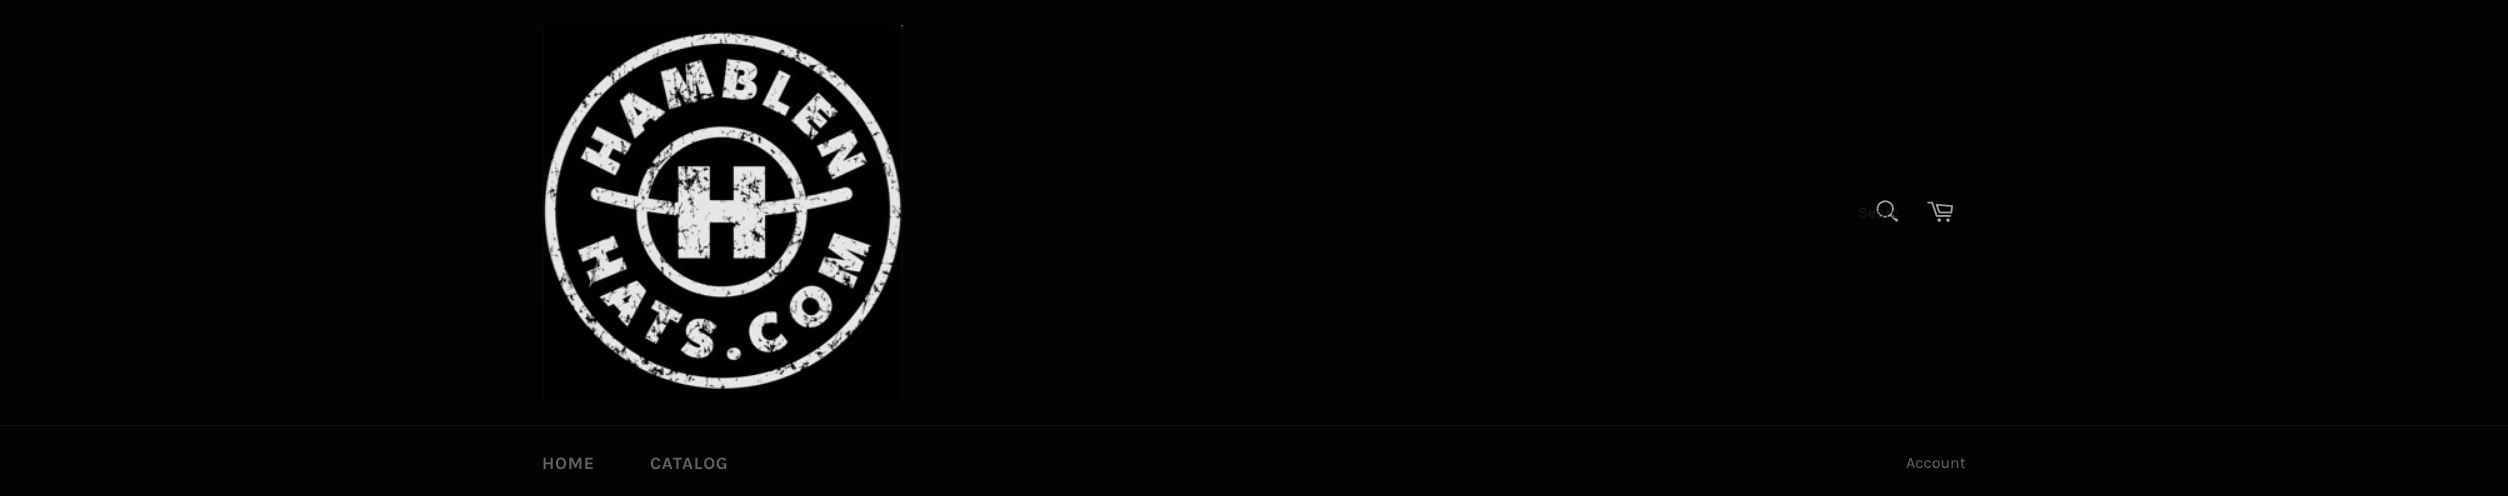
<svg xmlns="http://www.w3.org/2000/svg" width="2508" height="496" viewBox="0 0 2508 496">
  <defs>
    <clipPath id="clip1"><path d="M1858 204h40v19H1858z"/></clipPath>
  </defs>
  <rect width="100%" height="100%" fill="#030303"/>
  <image x="542" y="25" width="361" height="375" href="img/1.png"/>
  <image x="1876" y="200" width="23" height="22" href="img/2.png"/>
  <image x="1927" y="201" width="26" height="21" href="img/3.png"/>
  <path d="M0 425h2508v1H0z" fill="#101010"/>
  <g clip-path="url(#clip1)">
    <text x="1858" y="218" font-family="Karla" font-size="16" fill="#1b1b1b">Searc</text>
  </g>
  <g font-family="Karla" font-size="17.5" font-weight="bold" letter-spacing="0.75" fill="#626262">
    <text x="542" y="469">HOME</text>
    <text x="650" y="469">CATALOG</text>
  </g>
  <text x="1906" y="468" font-family="Karla" font-size="16" fill="#626262">Account</text>
</svg>
